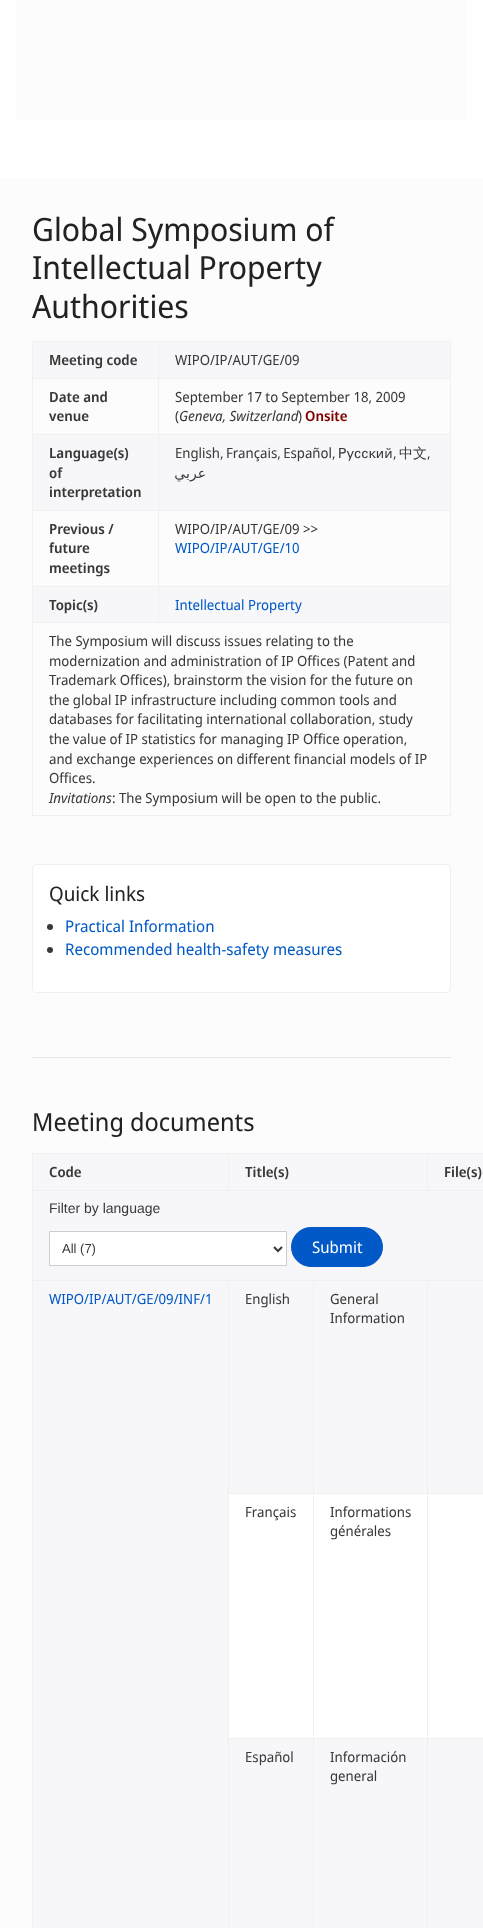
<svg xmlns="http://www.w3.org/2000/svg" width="483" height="1928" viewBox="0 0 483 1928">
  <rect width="100%" height="100%" fill="#fcfcfc"/>
  <path d="M0 0h483v178H0z" fill="#fff"/>
  <path d="M16 0h451v120H16z" fill="#fcfcfc"/>
  <path d="M33 342h125v36H33z" fill="#f7f7fa"/>
  <path d="M158 341h293v1H158z" fill="#f0f0f0"/>
  <path d="M158 378h293v1H158z" fill="#f0f0f0"/>
  <path d="M158 434h293v1H158z" fill="#f0f0f0"/>
  <path d="M158 510h293v1H158z" fill="#f0f0f0"/>
  <path d="M158 586h293v1H158z" fill="#f0f0f0"/>
  <path d="M32 622h419v1H32z" fill="#f0f0f0"/>
  <path d="M158 586h1v37H158z" fill="#f0f0f0"/>
  <path d="M32 586h127v1H32z" fill="#f0f0f0"/>
  <path d="M158 510h1v77H158z" fill="#f0f0f0"/>
  <path d="M32 510h127v1H32z" fill="#f0f0f0"/>
  <path d="M158 434h1v77H158z" fill="#f0f0f0"/>
  <path d="M32 434h127v1H32z" fill="#f0f0f0"/>
  <path d="M158 378h1v57H158z" fill="#f0f0f0"/>
  <path d="M32 378h127v1H32z" fill="#f0f0f0"/>
  <path d="M158 341h1v38H158z" fill="#f0f0f0"/>
  <path d="M32 341h127v1H32z" fill="#f0f0f0"/>
  <path d="M450 622h1v194H450z" fill="#f0f0f0"/>
  <path d="M32 815h419v1H32z" fill="#f0f0f0"/>
  <path d="M32 622h1v194H32z" fill="#f0f0f0"/>
  <path d="M32 586h1v37H32z" fill="#f0f0f0"/>
  <path d="M32 510h1v77H32z" fill="#f0f0f0"/>
  <path d="M32 434h1v77H32z" fill="#f0f0f0"/>
  <path d="M32 378h1v57H32z" fill="#f0f0f0"/>
  <path d="M32 341h1v38H32z" fill="#f0f0f0"/>
  <path d="M159 342h291v36H159z" fill="#f7f7fa"/>
  <path d="M450 586h1v37H450z" fill="#f0f0f0"/>
  <path d="M450 510h1v77H450z" fill="#f0f0f0"/>
  <path d="M450 434h1v77H450z" fill="#f0f0f0"/>
  <path d="M450 378h1v57H450z" fill="#f0f0f0"/>
  <path d="M450 341h1v38H450z" fill="#f0f0f0"/>
  <path d="M33 435h125v75H33z" fill="#f7f7fa"/>
  <path d="M159 435h291v75H159z" fill="#f7f7fa"/>
  <path d="M33 587h125v35H33z" fill="#f7f7fa"/>
  <path d="M159 587h291v35H159z" fill="#f7f7fa"/>
  <rect x="32.5" y="864.5" width="418" height="128" rx="3.5" fill="#fff" stroke="#f0f0f0"/>
  <circle cx="50" cy="927" r="3" fill="#393939"/>
  <circle cx="50" cy="950" r="3" fill="#393939"/>
  <path d="M32 1057h419v1H32z" fill="#e6e6e6"/>
  <path d="M229 1494h254v244H229z" fill="#fff"/>
  <path d="M228 1153h255v1H228z" fill="#f0f0f0"/>
  <path d="M32 1153h1v775H32z" fill="#f0f0f0"/>
  <path d="M33 1154h195v36H33z" fill="#f7f7fa"/>
  <path d="M32 1153h197v1H32z" fill="#f0f0f0"/>
  <path d="M427 1190h56v1H427z" fill="#f0f0f0"/>
  <path d="M427 1153h1v38H427z" fill="#f0f0f0"/>
  <path d="M228 1190h200v1H228z" fill="#f0f0f0"/>
  <path d="M228 1153h1v38H228z" fill="#f0f0f0"/>
  <path d="M32 1190h197v1H32z" fill="#f0f0f0"/>
  <path d="M229 1154h198v36H229z" fill="#f7f7fa"/>
  <path d="M428 1154h55v36H428z" fill="#f7f7fa"/>
  <path d="M33 1191h450v89H33z" fill="#f7f7fa"/>
  <path d="M49.5 1231.5h237v34H49.5z" fill="#fff" stroke="#ccc"/>
  <path d="M274 1247L278 1251L282 1247" fill="none" stroke="#393939" stroke-width="2"/>
  <rect x="291.5" y="1227.5" width="91" height="39" rx="19.5" fill="#0059c6" stroke="#0059c6"/>
  <path d="M428 1281h55v212H428z" fill="#f7f7fa"/>
  <path d="M32 1280h451v1H32z" fill="#f0f0f0"/>
  <path d="M33 1281h195v647H33z" fill="#f7f7fa"/>
  <path d="M228 1493h255v1H228z" fill="#f0f0f0"/>
  <path d="M228 1738h255v1H228z" fill="#f0f0f0"/>
  <path d="M228 1280h1v648H228z" fill="#f0f0f0"/>
  <path d="M229 1281h84v212H229z" fill="#f7f7fa"/>
  <path d="M313 1738h1v190H313z" fill="#f0f0f0"/>
  <path d="M313 1493h1v246H313z" fill="#f0f0f0"/>
  <path d="M313 1280h1v214H313z" fill="#f0f0f0"/>
  <path d="M314 1281h113v212H314z" fill="#f7f7fa"/>
  <path d="M427 1738h1v190H427z" fill="#f0f0f0"/>
  <path d="M427 1493h1v246H427z" fill="#f0f0f0"/>
  <path d="M427 1280h1v214H427z" fill="#f0f0f0"/>
  <path d="M428 1739h55v189H428z" fill="#f7f7fa"/>
  <path d="M229 1739h84v189H229z" fill="#f7f7fa"/>
  <path d="M314 1739h113v189H314z" fill="#f7f7fa"/>
  <g font-family="Noto Sans Display" font-size="32" fill="#222">
    <text x="32" y="241">Global Symposium of</text>
    <text x="32" y="279">Intellectual Property</text>
    <text x="32" y="318">Authorities</text>
  </g>
  <text x="49" y="365" font-family="Noto Sans Display" font-size="14" font-weight="600" fill="#393939">Meeting code</text>
  <text x="175" y="365" font-family="Noto Sans Display" font-size="14" fill="#393939">WIPO/IP/AUT/GE/09</text>
  <g font-family="Noto Sans Display" font-size="14" font-weight="600" fill="#393939">
    <text x="49" y="402">Date and</text>
    <text x="49" y="421">venue</text>
  </g>
  <g font-family="Noto Sans Display" font-size="14" fill="#393939">
    <text x="175" y="402">September 17 to September 18, 2009</text>
    <text x="175" y="421">(</text>
  </g>
  <text x="179" y="421" font-family="Noto Sans Display" font-size="14" font-style="italic" fill="#393939">Geneva, Switzerland</text>
  <text x="298" y="421" font-family="Noto Sans Display" font-size="14" fill="#393939">)</text>
  <text x="305" y="421" font-family="Noto Sans Display" font-size="14" font-weight="600" fill="#800000">Onsite</text>
  <g font-family="Noto Sans Display" font-size="14" font-weight="600" fill="#393939">
    <text x="49" y="458">Language(s)</text>
    <text x="49" y="478">of</text>
    <text x="49" y="497">interpretation</text>
  </g>
  <text x="175" y="458" word-spacing="-1" font-family="Noto Sans Display" font-size="14" fill="#393939">English, Français, Español,</text>
  <text x="338" y="458" font-family="WenQuanYi Zen Hei" font-size="14" font-weight="500" fill="#393939">Русский</text>
  <text x="393" y="458" font-family="Noto Sans Display" font-size="14" fill="#393939">,</text>
  <text x="399" y="458" font-family="WenQuanYi Zen Hei" font-size="14" font-weight="500" fill="#393939">中文</text>
  <text x="427" y="458" font-family="Noto Sans Display" font-size="14" fill="#393939">,</text>
  <text x="206" y="478" font-family="DejaVu Sans" font-size="14" direction="rtl" fill="#393939">عربي</text>
  <g font-family="Noto Sans Display" font-size="14" font-weight="600" fill="#393939">
    <text x="49" y="534">Previous /</text>
    <text x="49" y="553">future</text>
    <text x="49" y="573">meetings</text>
  </g>
  <text x="175" y="534" font-family="Noto Sans Display" font-size="14" fill="#393939">WIPO/IP/AUT/GE/09 &gt;&gt;</text>
  <text x="175" y="553" font-family="Noto Sans Display" font-size="14" fill="#0059c6">WIPO/IP/AUT/GE/10</text>
  <text x="49" y="610" font-family="Noto Sans Display" font-size="14" font-weight="600" fill="#393939">Topic(s)</text>
  <text x="175" y="610" font-family="Noto Sans Display" font-size="14" fill="#0059c6">Intellectual Property</text>
  <g font-family="Noto Sans Display" font-size="14" fill="#393939">
    <text x="49" y="646">The Symposium will discuss issues relating to the</text>
    <text x="49" y="666">modernization and administration of IP Offices (Patent and</text>
    <text x="49" y="685">Trademark Offices), brainstorm the vision for the future on</text>
    <text x="49" y="705">the global IP infrastructure including common tools and</text>
    <text x="49" y="724">databases for facilitating international collaboration, study</text>
    <text x="49" y="744">the value of IP statistics for managing IP Office operation,</text>
    <text x="49" y="764">and exchange experiences on different financial models of IP</text>
    <text x="49" y="783">Offices.</text>
  </g>
  <text x="49" y="803" font-family="Noto Sans Display" font-size="14" font-style="italic" fill="#393939">Invitations</text>
  <text x="112" y="803" font-family="Noto Sans Display" font-size="14" fill="#393939">: The Symposium will be open to the public.</text>
  <text x="49" y="901" font-family="Noto Sans Display" font-size="20" fill="#222">Quick links</text>
  <g font-family="Noto Sans Display" font-size="16" fill="#0059c6">
    <text x="65" y="932">Practical Information</text>
    <text x="65" y="955">Recommended health-safety measures</text>
  </g>
  <text x="32" y="1131" font-family="Noto Sans Display" font-size="25" fill="#222">Meeting documents</text>
  <g font-family="Noto Sans Display" font-size="14" font-weight="600" fill="#393939">
    <text x="49" y="1177">Code</text>
    <text x="245" y="1177">Title(s)</text>
    <text x="444" y="1177">File(s)</text>
  </g>
  <text x="49" y="1213" font-family="Liberation Sans" font-size="14" fill="#393939">Filter by language</text>
  <text x="62" y="1253" font-family="Liberation Sans" font-size="13" fill="#393939">All (7)</text>
  <text x="312" y="1253" font-family="Noto Sans Display" font-size="16" fill="#fff">Submit</text>
  <text x="49" y="1304" font-family="Noto Sans Display" font-size="14" fill="#0059c6">WIPO/IP/AUT/GE/09/INF/1</text>
  <g font-family="Noto Sans Display" font-size="14" fill="#393939">
    <text x="245" y="1304">English</text>
    <text x="330" y="1304">General</text>
    <text x="330" y="1323">Information</text>
    <text x="245" y="1517">Français</text>
    <text x="330" y="1517">Informations</text>
    <text x="330" y="1536">générales</text>
    <text x="245" y="1762">Español</text>
    <text x="330" y="1762">Información</text>
    <text x="330" y="1781">general</text>
  </g>
</svg>
